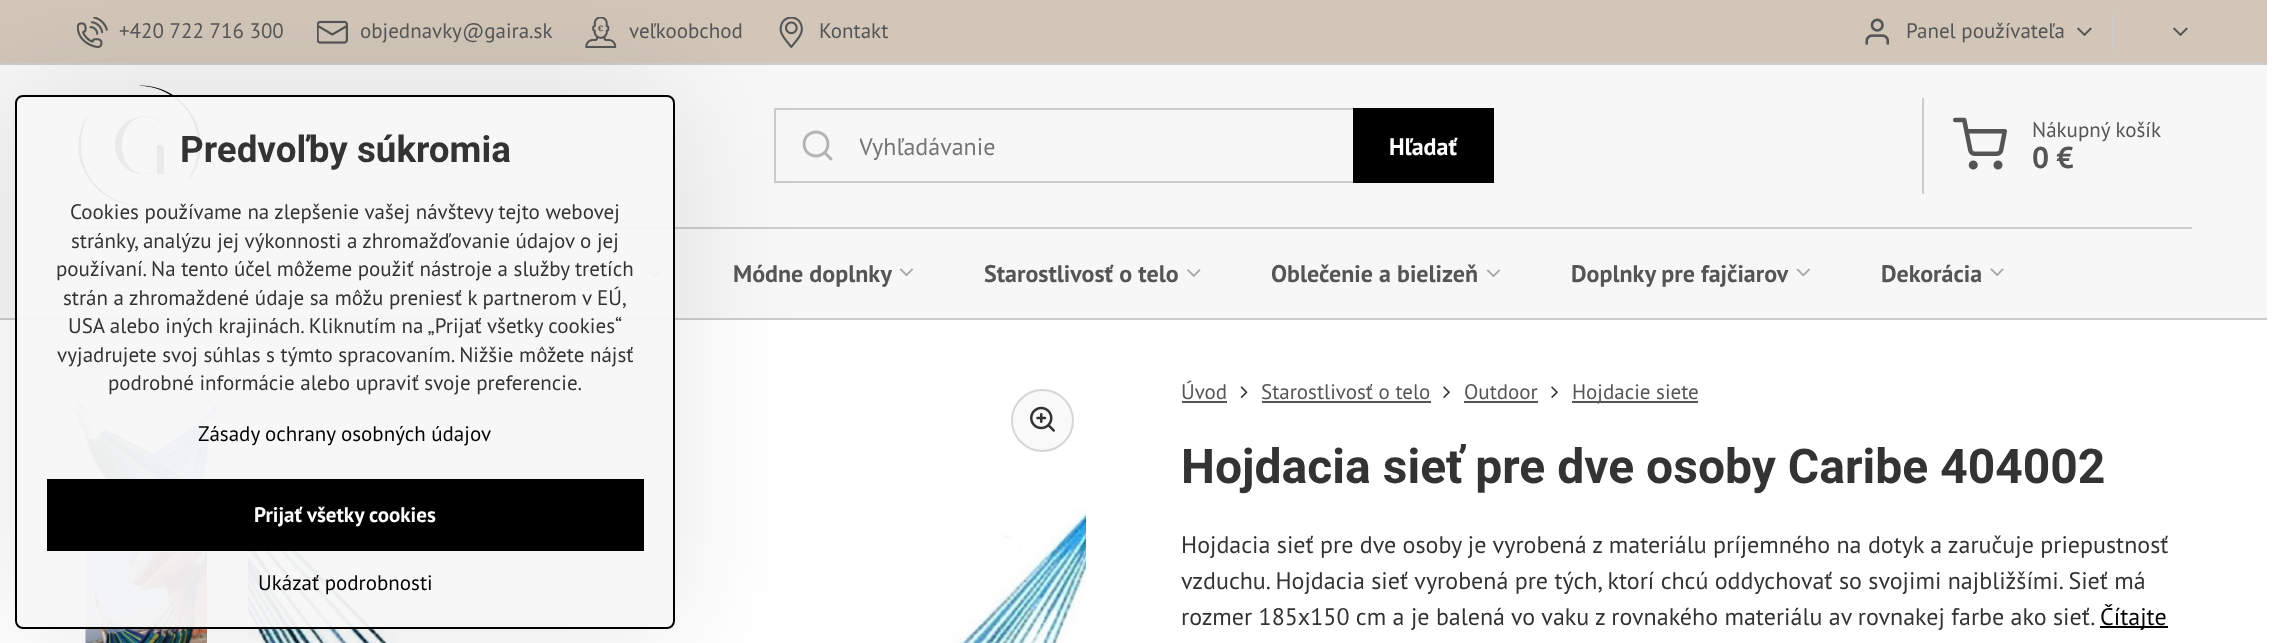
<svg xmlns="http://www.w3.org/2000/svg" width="2289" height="643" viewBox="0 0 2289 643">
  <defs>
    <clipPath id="clip1"><path d="M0 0H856V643H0ZM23 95H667C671.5 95 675 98.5 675 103V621C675 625.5 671.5 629 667 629H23C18.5 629 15 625.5 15 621V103C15 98.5 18.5 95 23 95Z" clip-rule="evenodd"/></clipPath>
    <clipPath id="clip2"><path d="M860 131h475v30H860z"/></clipPath>
  </defs>
  <rect width="100%" height="100%" fill="#fff"/>
  <path d="M0 0h2267v63H0z" fill="#d1c6b8"/>
  <path d="M0 63h2267v2H0z" fill="#ccc"/>
  <image x="77" y="17" width="31" height="31" href="img/1.png"/>
  <image x="317" y="20" width="31" height="24" href="img/2.png"/>
  <image x="585" y="17" width="32" height="31" href="img/3.png"/>
  <image x="779" y="17" width="24" height="31" href="img/4.png"/>
  <path d="M2112 14h2v36H2112z" fill="#ccc"/>
  <image x="1865" y="18" width="25" height="27" href="img/5.png"/>
  <image x="2077" y="27" width="15" height="9" href="img/6.png"/>
  <image x="2173" y="27" width="15" height="9" href="img/6.png"/>
  <path d="M0 65h2267v253H0z" fill="#f7f7f7"/>
  <image x="78" y="85" width="123" height="121" href="img/7.png"/>
  <path d="M775 109h718v73H775z" fill="none" stroke="#ccc" stroke-width="2"/>
  <image x="802" y="130" width="31" height="31" href="img/8.png"/>
  <path d="M1353 108h141v75H1353z" fill="#000"/>
  <path d="M1922 98h2v96H1922z" fill="#ccc"/>
  <image x="1953" y="117" width="54" height="53" href="img/9.png"/>
  <path d="M0 318h2267v2H0z" fill="#ccc"/>
  <path d="M77 227h2115v2H77z" fill="#ccc"/>
  <image x="486" y="268" width="14" height="8" href="img/10.png"/>
  <image x="648" y="269" width="14" height="8" href="img/11.png"/>
  <image x="899" y="268" width="15" height="9" href="img/12.png"/>
  <image x="1187" y="269" width="14" height="8" href="img/13.png"/>
  <image x="1486" y="269" width="14" height="9" href="img/14.png"/>
  <image x="1796" y="268" width="14" height="9" href="img/15.png"/>
  <image x="1990" y="268" width="14" height="8" href="img/16.png"/>
  <image x="76" y="398" width="142" height="81" href="img/17.png"/>
  <image x="85" y="552" width="122" height="91" href="img/18.png"/>
  <circle cx="1042.5" cy="420.5" r="30.5" fill="#f9f9f9" stroke="#d6d6d6" stroke-width="2"/>
  <image x="1030" y="406" width="25" height="26" href="img/19.png"/>
  <image x="247" y="494" width="839" height="149" href="img/20.png"/>
  <path d="M1182 401h45v2H1182z" fill="#555"/>
  <image x="1240" y="386" width="8" height="12" href="img/21.png"/>
  <path d="M1262 401h169v2H1262z" fill="#555"/>
  <image x="1443" y="386" width="7" height="12" href="img/22.png"/>
  <path d="M1464 401h74v2H1464z" fill="#555"/>
  <image x="1551" y="386" width="7" height="12" href="img/22.png"/>
  <path d="M1572 401h126v2H1572z" fill="#555"/>
  <path d="M2100 626h68v2H2100z" fill="#000"/>
  <g clip-path="url(#clip1)">
    <rect x="15" y="95" width="660" height="534" rx="8" fill="#0000001a" filter="blur(60px)"/>
  </g>
  <rect x="16" y="96" width="658" height="532" rx="7" fill="#f7f7f7f2" stroke="#000" stroke-width="2"/>
  <path d="M47 479h597v72H47z" fill="#000"/>
  <g font-family="PT Sans" font-size="21" fill="#555">
    <text x="119" y="38">+420 722 716 300</text>
    <text x="360" y="38">objednavky@gaira.sk</text>
    <text x="629" y="38">veľkoobchod</text>
    <text x="819" y="38">Kontakt</text>
    <text x="1906" y="38">Panel používateľa</text>
  </g>
  <g clip-path="url(#clip2)">
    <text x="859" y="155" font-family="PT Sans" font-size="24" fill="#757575">Vyhľadávanie</text>
  </g>
  <text x="1389" y="155" font-family="PT Sans" font-size="24" font-weight="bold" fill="#fff">Hľadať</text>
  <text x="2032" y="137" font-family="PT Sans" font-size="21" fill="#555">Nákupný košík</text>
  <text x="2032" y="168" font-family="PT Sans" font-size="30" font-weight="bold" fill="#555">0 €</text>
  <g font-family="PT Sans" font-size="24" font-weight="bold" fill="#555">
    <text x="733" y="282">Módne doplnky</text>
    <text x="984" y="282">Starostlivosť o telo</text>
    <text x="1271" y="282">Oblečenie a bielizeň</text>
    <text x="1571" y="282">Doplnky pre fajčiarov</text>
    <text x="1881" y="282">Dekorácia</text>
  </g>
  <g font-family="PT Sans" font-size="21" fill="#555">
    <text x="1181" y="399">Úvod</text>
    <text x="1261" y="399">Starostlivosť o telo</text>
    <text x="1464" y="399">Outdoor</text>
    <text x="1572" y="399">Hojdacie siete</text>
  </g>
  <text x="1181" y="483" font-family="Roboto" font-size="48" font-weight="bold" fill="#333">Hojdacia sieť pre dve osoby Caribe 404002</text>
  <g font-family="PT Sans" font-size="24" fill="#333">
    <text x="1181" y="553">Hojdacia sieť pre dve osoby je vyrobená z materiálu príjemného na dotyk a zaručuje priepustnosť</text>
    <text x="1181" y="589">vzduchu. Hojdacia sieť vyrobená pre tých, ktorí chcú oddychovať so svojimi najbližšími. Sieť má</text>
    <text x="1181" y="625">rozmer 185x150 cm a je balená vo vaku z rovnakého materiálu av rovnakej farbe ako sieť.</text>
  </g>
  <text x="2100" y="625" font-family="PT Sans" font-size="24" fill="#000">Čítajte</text>
  <text x="180" y="162" font-family="Roboto" font-size="36.75" font-weight="bold" fill="#333">Predvoľby súkromia</text>
  <g font-family="PT Sans" font-size="21" fill="#333">
    <text x="70" y="219">Cookies používame na zlepšenie vašej návštevy tejto webovej</text>
    <text x="71" y="248">stránky, analýzu jej výkonnosti a zhromažďovanie údajov o jej</text>
    <text x="56" y="276">používaní. Na tento účel môžeme použiť nástroje a služby tretích</text>
    <text x="63" y="305">strán a zhromaždené údaje sa môžu preniesť k partnerom v EÚ,</text>
    <text x="68" y="333">USA alebo iných krajinách. Kliknutím na „Prijať všetky cookies“</text>
    <text x="57" y="362">vyjadrujete svoj súhlas s týmto spracovaním. Nižšie môžete nájsť</text>
    <text x="108" y="390">podrobné informácie alebo upraviť svoje preferencie.</text>
  </g>
  <text x="198" y="441" font-family="PT Sans" font-size="21" fill="#000">Zásady ochrany osobných údajov</text>
  <text x="254" y="522" font-family="PT Sans" font-size="21" font-weight="bold" fill="#fff">Prijať všetky cookies</text>
  <text x="258" y="590" font-family="PT Sans" font-size="21" fill="#000">Ukázať podrobnosti</text>
</svg>
